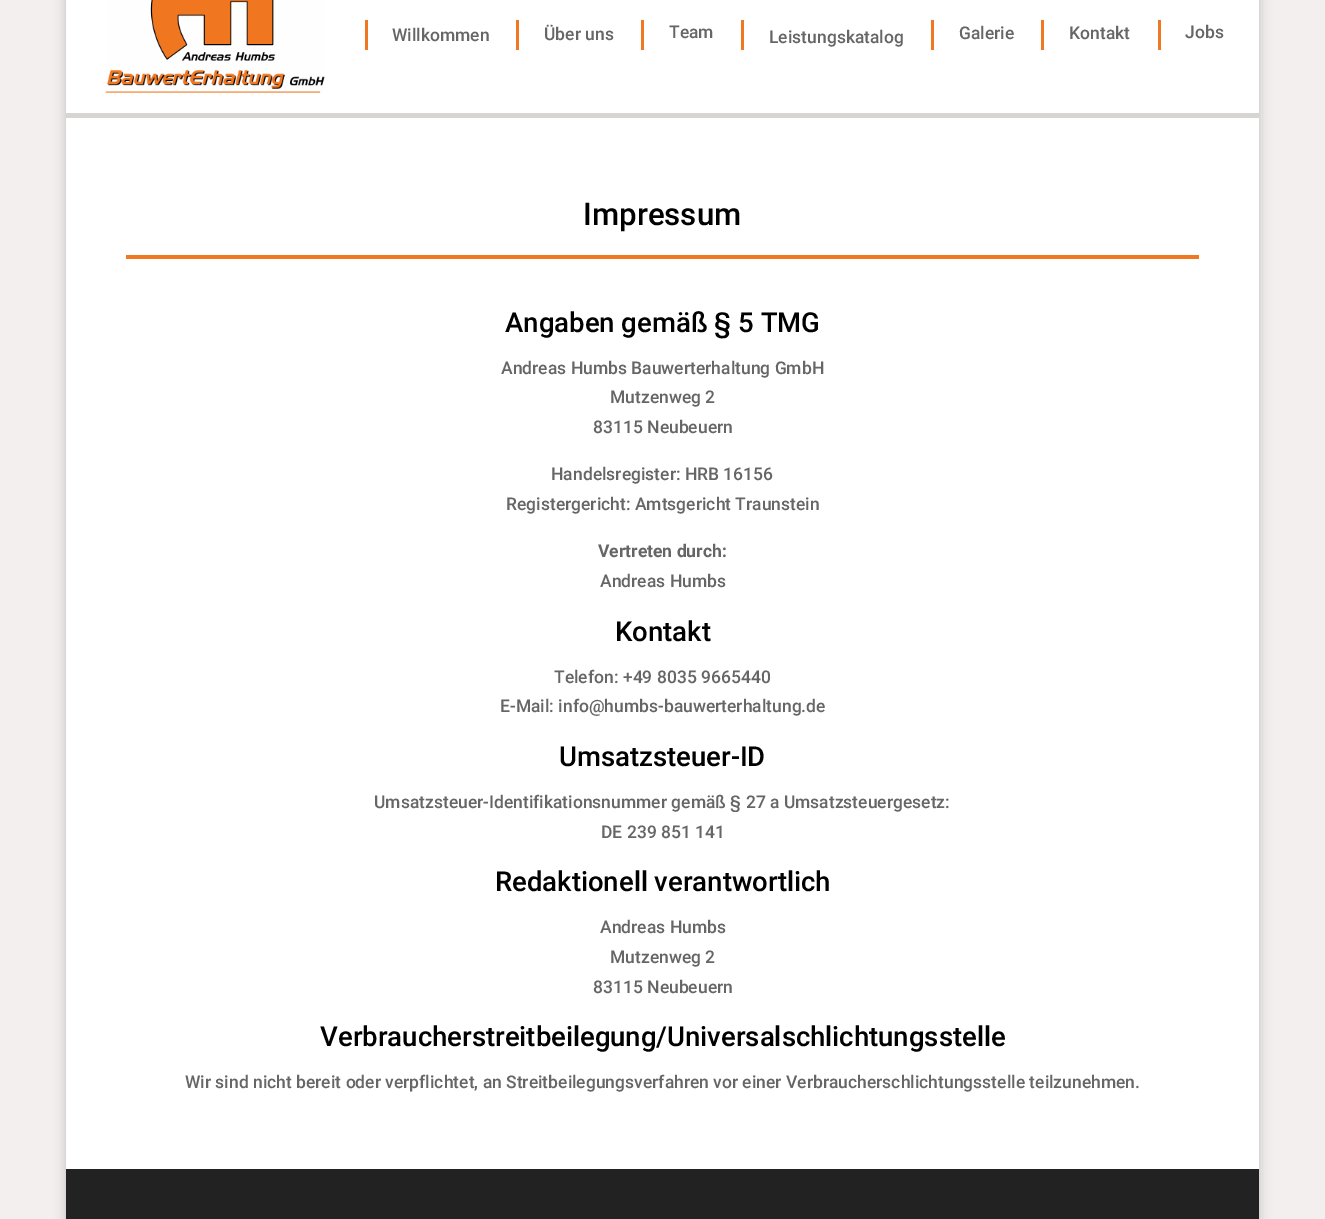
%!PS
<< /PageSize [1325 1219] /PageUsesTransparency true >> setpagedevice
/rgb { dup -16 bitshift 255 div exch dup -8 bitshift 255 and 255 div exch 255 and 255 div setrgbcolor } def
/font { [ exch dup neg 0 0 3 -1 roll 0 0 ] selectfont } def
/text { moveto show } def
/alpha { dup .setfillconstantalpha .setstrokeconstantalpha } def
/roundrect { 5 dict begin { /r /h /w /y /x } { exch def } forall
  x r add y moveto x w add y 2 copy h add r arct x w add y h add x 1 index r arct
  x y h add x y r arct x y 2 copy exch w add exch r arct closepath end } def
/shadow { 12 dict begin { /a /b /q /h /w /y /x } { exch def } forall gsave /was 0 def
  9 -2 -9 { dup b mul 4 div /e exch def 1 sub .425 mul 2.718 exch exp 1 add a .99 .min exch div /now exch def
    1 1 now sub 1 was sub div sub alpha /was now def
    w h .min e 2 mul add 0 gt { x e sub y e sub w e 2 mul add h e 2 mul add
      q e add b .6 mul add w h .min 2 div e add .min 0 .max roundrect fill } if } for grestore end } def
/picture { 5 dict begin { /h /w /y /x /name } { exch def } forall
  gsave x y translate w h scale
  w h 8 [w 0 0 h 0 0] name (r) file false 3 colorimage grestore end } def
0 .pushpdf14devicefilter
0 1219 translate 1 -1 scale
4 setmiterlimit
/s1 { /Roboto-Medium 17.5 font 16#666666 rgb } def
/s2 { /Roboto-Medium 31.25 font 16#000000 rgb } def
/s3 { /Roboto-Medium 27.5 font 16#000000 rgb } def
/s4 { /Roboto-Bold 17.5 font 16#666666 rgb } def
16#F4EFEF rgb
0 0 1325 1219 rectfill
16#000000 rgb
66 -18 1193 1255 0 6 0.2 shadow
16#FFFFFF rgb
66 0 1193 113 rectfill
16#D7D4D4 rgb
66 113 1193 5 rectfill
(pic1.raw) 105 0 220 93 picture
16#F17821 rgb
365 20 3 30 rectfill
s1
(Willkommen) 392 41 text
16#F17821 rgb
516 20 3 30 rectfill
s1
(Über uns) 544 40 text
16#F17821 rgb
641 20 3 30 rectfill
s1
(Team) 669 38 text
16#F17821 rgb
741 20 3 30 rectfill
s1
(Leistungskatalog) 769 43 text
16#F17821 rgb
931 20 3 30 rectfill
s1
(Galerie) 959 39 text
16#F17821 rgb
1041 20 3 30 rectfill
s1
(Kontakt) 1069 39 text
16#F17821 rgb
1158 20 3 30 rectfill
s1
(Jobs) 1185 38 text
16#FFFFFF rgb
66 118 1193 1051 rectfill
16#F17821 rgb
126 255 1073 4 rectfill
s2
(Impressum) 583 225 text
s3
(Angaben gemäß § 5 TMG) 505 332 text
s1
(Andreas Humbs Bauwerterhaltung GmbH) 501 374 text
(Mutzenweg 2) 610 403 text
(83115 Neubeuern) 593 433 text
(Handelsregister: HRB 16156) 551 480 text
(Registergericht: Amtsgericht Traunstein) 506 510 text
s4
(Vertreten durch:) 598 557 text
s1
(Andreas Humbs) 600 587 text
s3
(Kontakt) 615 641 text
s1
(Telefon: +49 8035 9665440) 554 683 text
(E-Mail: info@humbs-bauwerterhaltung.de) 500 712 text
s3
(Umsatzsteuer-ID) 559 766 text
s1
(Umsatzsteuer-Identifikationsnummer gemäß § 27 a Umsatzsteuergesetz:) 374 808 text
(DE 239 851 141) 601 838 text
s3
(Redaktionell verantwortlich) 495 891 text
s1
(Andreas Humbs) 600 933 text
(Mutzenweg 2) 610 963 text
(83115 Neubeuern) 593 993 text
s3
(Verbraucherstreitbeilegung/Universalschlichtungsstelle) 320 1046 text
s1
(Wir sind nicht bereit oder verpflichtet, an Streitbeilegungsverfahren vor einer Verbraucherschlichtungsstelle teilzunehmen.) 185 1088 text
16#222222 rgb
66 1169 1193 50 rectfill
.poppdf14devicefilter showpage
